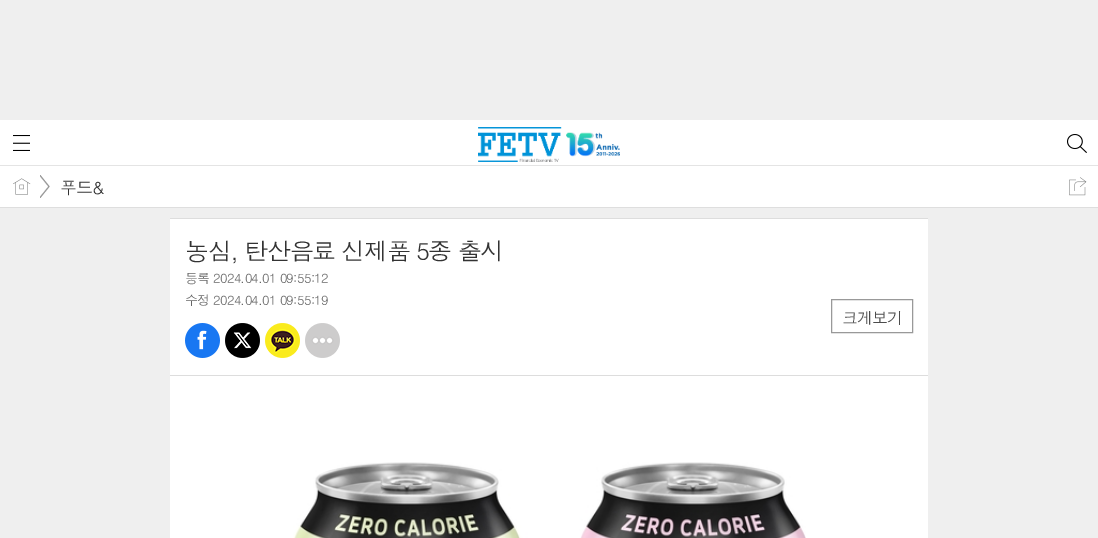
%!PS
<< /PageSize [1098 538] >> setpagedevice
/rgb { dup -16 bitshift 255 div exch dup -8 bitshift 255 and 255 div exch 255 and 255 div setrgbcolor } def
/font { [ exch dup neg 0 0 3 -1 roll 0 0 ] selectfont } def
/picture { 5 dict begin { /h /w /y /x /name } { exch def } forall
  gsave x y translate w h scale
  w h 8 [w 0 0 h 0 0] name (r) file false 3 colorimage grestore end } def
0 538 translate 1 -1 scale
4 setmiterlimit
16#EFEFEF rgb
0 0 1098 538 rectfill
16#FFFFFF rgb
0 120 1098 45 rectfill
16#E4E4E4 rgb
0 165 1098 1 rectfill
(pic1.raw) 13 135 17 16 picture
(pic2.raw) 478 127 142 35 picture
(pic3.raw) 1067 134 20 19 picture
16#FFFFFF rgb
0 166 1098 41 rectfill
16#DEDEDE rgb
0 207 1098 1 rectfill
(pic4.raw) 13 178 18 17 picture
gsave
40 175 10 23 rectclip
16#999999 rgb
38.5 173.5 moveto 49 186.5 lineto 38.5 199.5 lineto stroke
grestore
/Dotum-Regular 17 font
16#333333 rgb
60 194 moveto -1 0 (푸드&) ashow
(pic5.raw) 1069 177 18 19 picture
16#FFFFFF rgb
170 219 758 156 rectfill
16#DDDDDD rgb
170 218 758 1 rectfill
170 375 758 1 rectfill
/Dotum-Regular 24 font
16#333333 rgb
185 260 moveto -1.4 0 (농심, 탄산음료 신제품 5종 출시) ashow
/Dotum-Regular 13 font
16#666666 rgb
185 283 moveto -0.75 0 (등록 2024.04.01 09:55:12) ashow
185 305 moveto -0.75 0 (수정 2024.04.01 09:55:19) ashow
16#999999 rgb
831.5 299.5 81 33 rectstroke
/Dotum-Regular 16 font
16#4C4C4C rgb
842 324 moveto -1 0 (크게보기) ashow
(pic6.raw) 185 323 35 35 picture
(pic7.raw) 225 323 35 35 picture
(pic8.raw) 265 323 35 35 picture
(pic9.raw) 305 323 35 35 picture
16#FFFFFF rgb
170 376 758 162 rectfill
(pic10.raw) 293 462 513 76 picture
showpage
